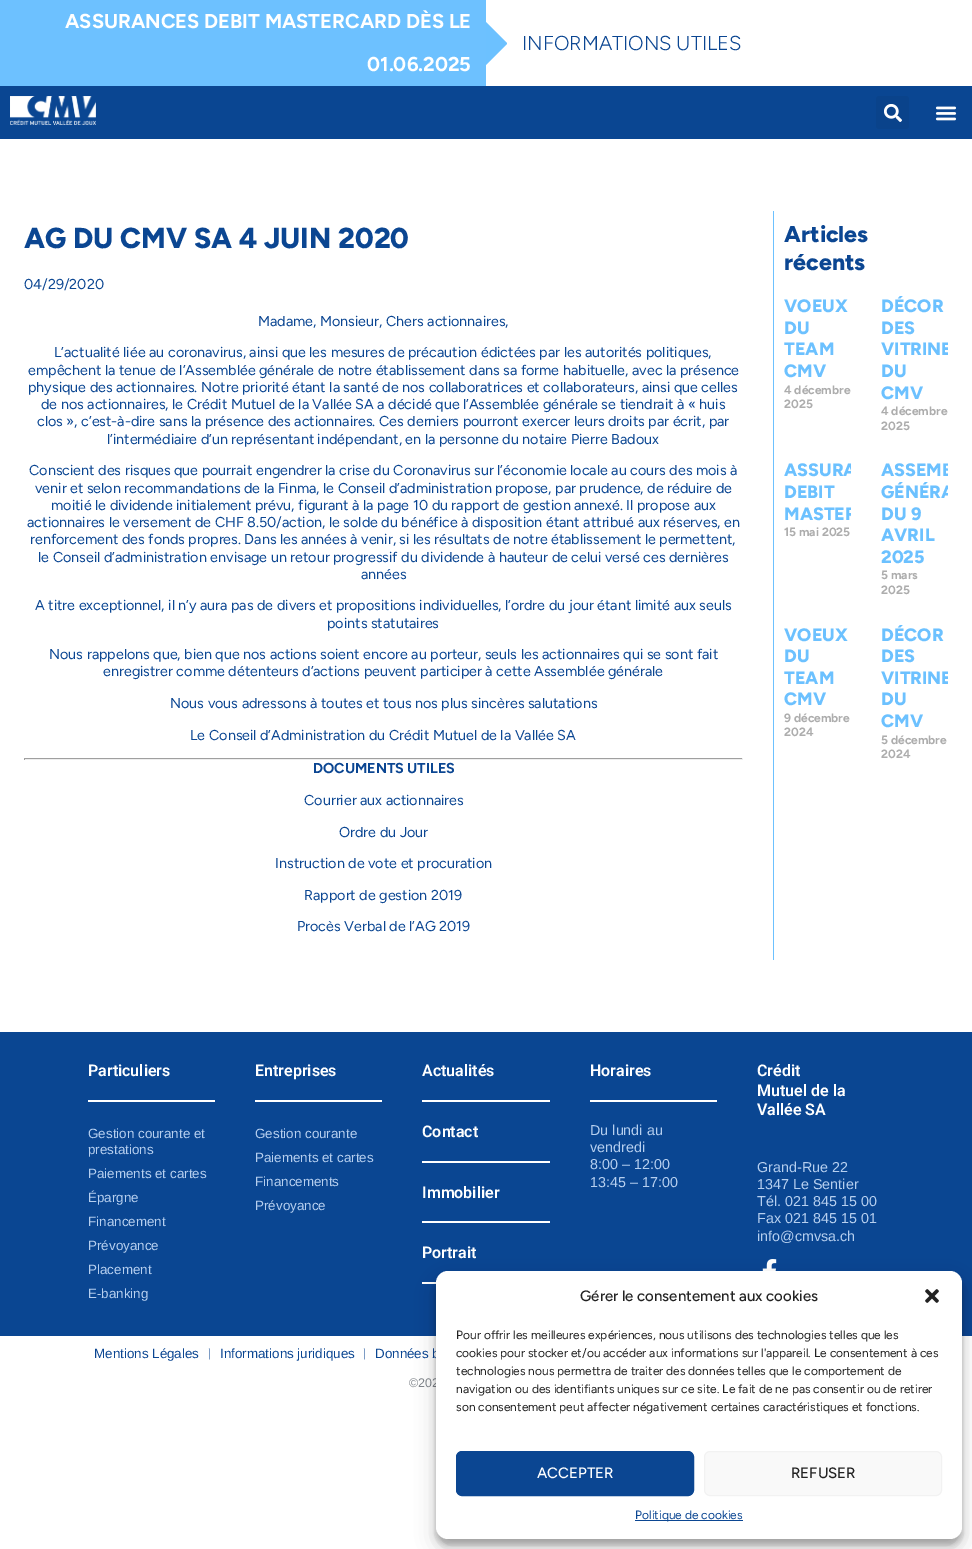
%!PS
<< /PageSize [972 1549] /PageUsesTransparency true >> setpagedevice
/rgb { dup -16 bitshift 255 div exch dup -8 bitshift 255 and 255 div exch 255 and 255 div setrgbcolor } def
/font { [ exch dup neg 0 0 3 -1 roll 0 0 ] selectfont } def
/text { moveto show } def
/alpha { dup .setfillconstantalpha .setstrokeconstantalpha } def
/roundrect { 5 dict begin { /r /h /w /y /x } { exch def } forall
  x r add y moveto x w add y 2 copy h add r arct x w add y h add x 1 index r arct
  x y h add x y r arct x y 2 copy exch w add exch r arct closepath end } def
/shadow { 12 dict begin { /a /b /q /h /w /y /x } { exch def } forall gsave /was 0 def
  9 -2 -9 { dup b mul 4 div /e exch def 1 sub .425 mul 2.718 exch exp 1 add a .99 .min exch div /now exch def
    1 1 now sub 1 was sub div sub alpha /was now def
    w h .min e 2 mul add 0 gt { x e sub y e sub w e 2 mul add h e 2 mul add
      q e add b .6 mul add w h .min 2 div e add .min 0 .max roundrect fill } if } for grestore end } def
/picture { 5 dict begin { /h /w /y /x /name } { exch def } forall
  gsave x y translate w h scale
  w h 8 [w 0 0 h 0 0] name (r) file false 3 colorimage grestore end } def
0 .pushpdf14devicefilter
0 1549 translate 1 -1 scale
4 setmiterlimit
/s1 { /Figtree-Bold 20.1 font 16#FFFFFF rgb } def
/s2 { /Figtree-Light 20.1 font 16#0B4692 rgb } def
/s3 { /Figtree-ExtraBold 28.75 font 16#0B4692 rgb } def
/s4 { /Figtree-Regular 14.35 font 16#0B4692 rgb } def
/s5 { /Figtree-Bold 14.35 font 16#0B4692 rgb } def
/s6 { /Figtree-ExtraBold 23 font 16#0B4692 rgb } def
/s7 { /Figtree-ExtraBold 18 font 16#6CC1FF rgb } def
/s8 { /Figtree-Bold 12 font 16#ADADAD rgb } def
/s9 { /Roboto-SemiBold 16 font 16#FFFFFF rgb } def
/s10 { /LiberationSans-Regular 13.4 font 16#B6CFEF rgb } def
/s11 { /LiberationSans-Regular 14.35 font 16#B6CFEF rgb } def
/s12 { /LiberationSans-Regular 13.4 font 16#0B4692 rgb } def
/s13 { /WenQuanYiZenHei-Medium 13.4 font 16#0B4692 rgb } def
/s14 { /LiberationSans-Regular 12.5 font 16#80858B rgb } def
/s15 { /Figtree-Medium 15 font 16#222222 rgb } def
/s16 { /Figtree-Regular 12 font 16#222222 rgb } def
/s17 { /Figtree-Medium 15 font 16#FFFFFF rgb } def
/s18 { /Figtree-Regular 12 font 16#0B4692 rgb } def
16#FFFFFF rgb
0 0 972 1549 rectfill
16#6DC1FF rgb
0 0 486 86 rectfill
s1
(ASSURANCES DEBIT MASTERCARD DÈS LE) 65 28 text
(01.06.2025) 367 71 text
16#6CC1FF rgb
486 65 moveto 486 22 lineto 507 43 lineto 507 44 lineto closepath fill
s2
(INFORMATIONS UTILES) 522 50 text
16#0A4692 rgb
0 86 972 53 rectfill
(pic1.raw) 10 96 86 29 picture
16#0A438B rgb
876 96 33 33 3 roundrect fill
(pic2.raw) 884 104 18 18 picture
(pic3.raw) 935 106 22 15 picture
s3
(AG DU CMV SA 4 JUIN 2020) 24 248 text
s4
(04/29/2020) 24 289 text
(Madame, Monsieur, Chers actionnaires,) 258 326 text
(L’actualité liée au coronavirus, ainsi que les mesures de précaution édictées par les autorités politiques,) 54 357 text
(empêchent la tenue de l’Assemblée générale de notre établissement dans sa forme habituelle, avec la présence) 28 375 text
(physique des actionnaires. Notre priorité étant la santé de nos collaboratrices et collaborateurs, ainsi que celles) 28 392 text
(de nos actionnaires, le Crédit Mutuel de la Vallée SA a décidé que l’Assemblée générale se tiendrait à « huis) 41 409 text
(clos », c’est-à-dire sans la présence des actionnaires. Ces derniers pourront exercer leurs droits par écrit, par) 37 426 text
(l’intermédiaire d’un représentant indépendant, en la personne du notaire Pierre Badoux) 107 444 text
(Conscient des risques que pourrait engendrer la crise du Coronavirus sur l’économie locale au cours des mois à) 29 475 text
(venir et selon recommandations de la Finma, le Conseil d’administration propose, par prudence, de réduire de) 35 493 text
(moitié le dividende initialement prévu, figurant à la page 10 du rapport de gestion annexé. Il propose aux) 51 510 text
(actionnaires le versement de CHF 8.50/action, le solde du bénéfice à disposition étant attribué aux réserves, en) 27 527 text
(renforcement des fonds propres. Dans les années à venir, si les résultats de notre établissement le permettent,) 30 544 text
(le Conseil d’administration envisage un retour progressif du dividende à hauteur de celui versé ces dernières) 38 562 text
(années) 361 579 text
(A titre exceptionnel, il n’y aura pas de divers et propositions individuelles, l’ordre du jour étant limité aux seuls) 35 610 text
(points statutaires) 327 628 text
(Nous rappelons que, bien que nos actions soient encore au porteur, seuls les actionnaires qui se sont fait) 49 659 text
(enregistrer comme détenteurs d’actions peuvent participer à cette Assemblée générale) 103 676 text
(Nous vous adressons à toutes et tous nos plus sincères salutations) 170 708 text
(Le Conseil d’Administration du Crédit Mutuel de la Vallée SA) 190 740 text
16#9F9F9F rgb
24 758 719 1 rectfill
16#EEEEEE rgb
742 758 1 2 rectfill
24 759 719 1 rectfill
16#9F9F9F rgb
24 758 1 2 rectfill
s5
(DOCUMENTS UTILES) 313 773 text
s4
(Courrier aux actionnaires) 304 805 text
(Ordre du Jour) 339 837 text
(Instruction de vote et procuration) 275 868 text
(Rapport de gestion 2019) 304 900 text
(Procès Verbal de l’AG 2019) 297 931 text
16#6CC1FF rgb
773 211 1 749 rectfill
s6
(Articles) 784 242 text
(récents) 784 270 text
s7
(VOEUX) 784 312 text
(DU) 784 334 text
(TEAM) 784 355 text
(CMV) 784 377 text
s8
(4 décembre) 784 394 text
(2025) 784 408 text
s7
(DÉCOR) 881 312 text
(DES) 881 334 text
gsave
881 296 67 150 rectclip
(VITRINE) 881 355 text
grestore
(DU) 881 377 text
(CMV) 881 399 text
s8
(4 décembre) 881 415 text
(2025) 881 430 text
gsave
784 460 67 150 rectclip
s7
(ASSURA) 784 476 text
grestore
s7
(DEBIT) 784 498 text
gsave
784 460 67 150 rectclip
(MASTER) 784 520 text
grestore
s8
(15 mai 2025) 784 536 text
gsave
881 460 67 150 rectclip
s7
(ASSEMB) 881 476 text
(GÉNÉRA) 881 498 text
grestore
s7
(DU 9) 881 520 text
(AVRIL) 881 541 text
(2025) 881 563 text
s8
(5 mars) 881 579 text
(2025) 881 594 text
s7
(VOEUX) 784 641 text
(DU) 784 662 text
(TEAM) 784 684 text
(CMV) 784 705 text
s8
(9 décembre) 784 722 text
(2024) 784 736 text
s7
(DÉCOR) 881 641 text
(DES) 881 662 text
gsave
881 625 67 149 rectclip
(VITRINE) 881 684 text
grestore
(DU) 881 705 text
(CMV) 881 727 text
s8
(5 décembre) 881 744 text
(2024) 881 758 text
16#0A4692 rgb
0 1032 972 304 rectfill
16#FFFFFF rgb
88 1100 127 2 rectfill
s9
(Particuliers) 88 1076 text
s10
(Gestion courante et) 88 1138 text
(prestations) 88 1154 text
(Paiements et cartes) 88 1178 text
(Épargne) 88 1202 text
(Financement) 88 1226 text
(Prévoyance) 88 1250 text
(Placement) 88 1274 text
(E-banking) 88 1298 text
16#FFFFFF rgb
255 1100 127 2 rectfill
s9
(Entreprises) 255 1076 text
s10
(Gestion courante) 255 1138 text
(Paiements et cartes) 255 1162 text
(Financements) 255 1186 text
(Prévoyance) 255 1210 text
16#FFFFFF rgb
422 1100 128 2 rectfill
s9
(Actualités) 422 1076 text
422 1161 128 2 rectfill
(Contact) 422 1137 text
422 1221 128 2 rectfill
(Immobilier) 422 1198 text
422 1282 15 2 rectfill
(Portrait) 422 1258 text
590 1100 127 2 rectfill
(Horaires) 590 1076 text
s11
(Du lundi au) 590 1135 text
(vendredi) 590 1152 text
(8:00 – 12:00) 590 1169 text
(13:45 – 17:00) 590 1187 text
s9
(Crédit) 757 1076 text
(Mutuel de la) 757 1096 text
(Vallée SA) 757 1115 text
s11
(Grand-Rue 22) 757 1172 text
(1347 Le Sentier) 757 1189 text
(Tél. 021 845 15 00) 757 1206 text
(Fax 021 845 15 01) 757 1223 text
(info@cmvsa.ch) 757 1241 text
(pic4.raw) 762 1259 15 12 picture
s12
(Mentions Légales) 94 1358 text
s13
(︱) 203 1358 text
s12
(Informations juridiques) 220 1358 text
s13
(︱) 358 1358 text
s12
(Données b) 375 1358 text
s14
(©202) 409 1387 text
16#000000 rgb
436 1277 526 268 12 3 0.23 shadow
436 1281 526 268 12 10 0.19 shadow
16#FFFFFF rgb
436 1271 526 268 12 roundrect fill
s15
(Gérer le consentement aux cookies) 580 1301 text
(pic5.raw) 925 1289 14 14 picture
s16
(Pour offrir les meilleures expériences, nous utilisons des technologies telles que les) 456 1339 text
(cookies pour stocker et/ou accéder aux informations sur l'appareil. Le consentement à ces) 456 1357 text
(technologies nous permettra de traiter des données telles que le comportement de) 456 1375 text
(navigation ou des identifiants uniques sur ce site. Le fait de ne pas consentir ou de retirer) 456 1393 text
(son consentement peut affecter négativement certaines caractéristiques et fonctions.) 456 1411 text
16#0B4692 rgb
456.5 1451.5 237 44 5.5 roundrect gsave fill grestore
stroke
s17
(ACCEPTER) 537 1478 text
16#F9F9F9 rgb
704.5 1451.5 237 44 5.5 roundrect gsave fill grestore
16#F2F2F2 rgb
stroke
s15
(REFUSER) 791 1478 text
16#0B4692 rgb
635 1520 108 1 rectfill
s18
(Politique de cookies) 635 1519 text
.poppdf14devicefilter showpage
